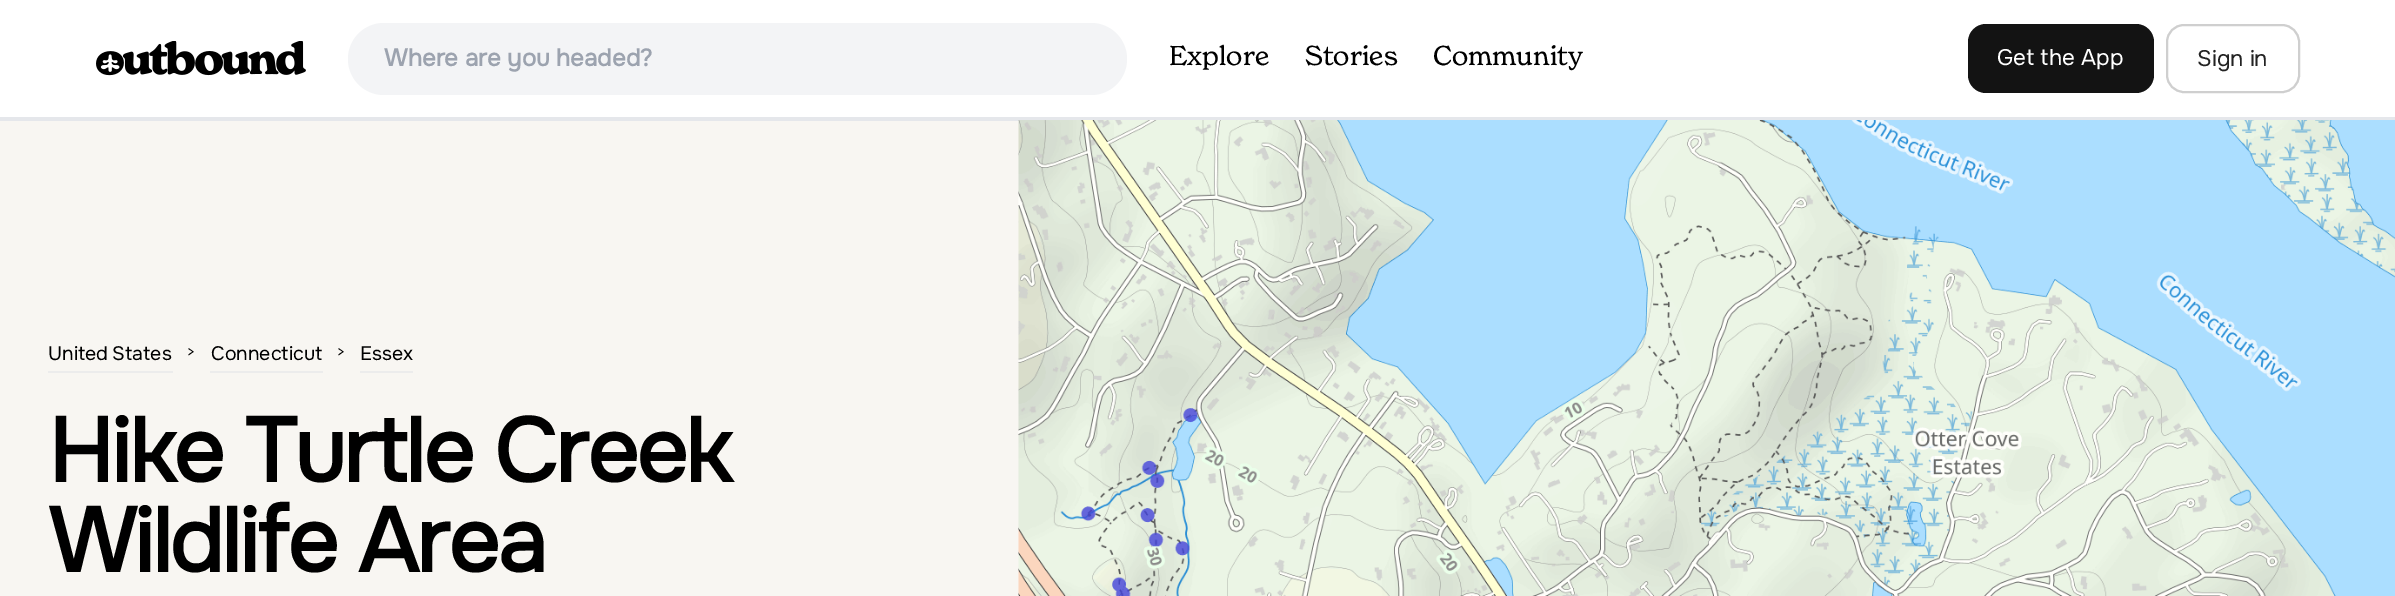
%!PS
<< /PageSize [2395 596] >> setpagedevice
/rgb { dup -16 bitshift 255 div exch dup -8 bitshift 255 and 255 div exch 255 and 255 div setrgbcolor } def
/font { [ exch dup neg 0 0 3 -1 roll 0 0 ] selectfont } def
/text { moveto show } def
/roundrect { 5 dict begin { /r /h /w /y /x } { exch def } forall
  x r add y moveto x w add y 2 copy h add r arct x w add y h add x 1 index r arct
  x y h add x y r arct x y 2 copy exch w add exch r arct closepath end } def
/picture { 5 dict begin { /h /w /y /x /name } { exch def } forall
  gsave x y translate w h scale
  w h 8 [w 0 0 h 0 0] name (r) file false 3 colorimage grestore end } def
0 596 translate 1 -1 scale
4 setmiterlimit
/s1 { /Onest-Bold 24 font 16#9CA3AF rgb } def
/s2 { /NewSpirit-Regular 27 font 16#000000 rgb } def
/s3 { /Onest-Regular 22.5 font 16#FFFFFF rgb } def
/s4 { /Onest-Regular 22.5 font 16#232323 rgb } def
/s5 { /Onest-Regular 15 font 16#000000 rgb } def
/s6 { /Onest-Regular 19.5 font 16#000000 rgb } def
16#F8F6F2 rgb
0 0 2395 596 rectfill
16#FFFFFF rgb
0 0 2395 117 rectfill
16#E5E7EB rgb
0 117 2395 4 rectfill
(pic1.raw) 96 41 210 35 picture
16#F3F4F6 rgb
348 23 779 72 36 roundrect fill
s1
(Where are you headed?) 384 66 text
s2
(Explore) 1169 65 text
(Stories) 1305 65 text
(Community) 1433 65 text
16#131313 rgb
1968 24 186 69 18 roundrect fill
s3
(Get the App) 1997 65 text
16#CFCFCF rgb
2 setlinewidth
2167 25 132 67 17 roundrect stroke
s4
(Sign in) 2197 66 text
/Onest-Regular 19.5 font
16#000000 rgb
48 360 moveto -1 0 32 (United States) widthshow
16#ECECEC rgb
48 371 125 2 rectfill
s5
(>) 187 357 text
s6
(Connecticut) 211 360 text
16#ECECEC rgb
210 371 113 2 rectfill
s5
(>) 337 357 text
s6
(Essex) 360 360 text
16#ECECEC rgb
360 371 53 2 rectfill
/Onest-Bold 90 font
16#000000 rgb
48 482 moveto -2.25 0 (Hike Turtle Creek) ashow
48 572 moveto -2.25 0 (Wildlife Area) ashow
(pic2.raw) 1018 120 1377 476 picture
showpage
